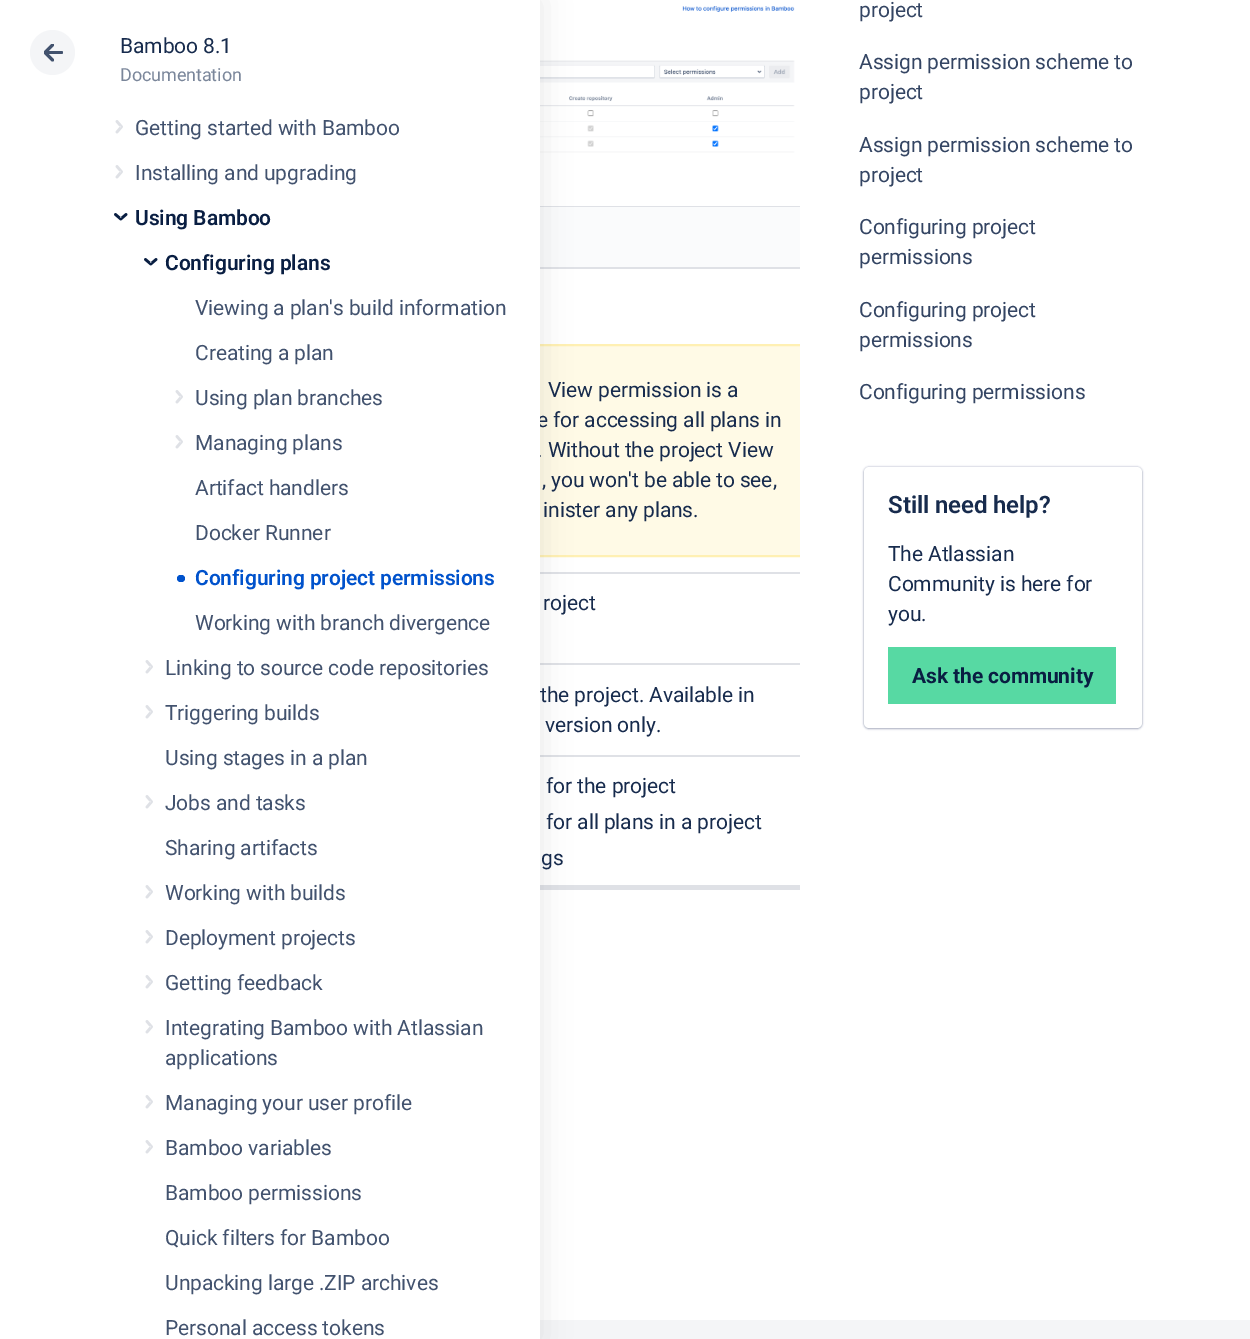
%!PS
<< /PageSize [1250 1339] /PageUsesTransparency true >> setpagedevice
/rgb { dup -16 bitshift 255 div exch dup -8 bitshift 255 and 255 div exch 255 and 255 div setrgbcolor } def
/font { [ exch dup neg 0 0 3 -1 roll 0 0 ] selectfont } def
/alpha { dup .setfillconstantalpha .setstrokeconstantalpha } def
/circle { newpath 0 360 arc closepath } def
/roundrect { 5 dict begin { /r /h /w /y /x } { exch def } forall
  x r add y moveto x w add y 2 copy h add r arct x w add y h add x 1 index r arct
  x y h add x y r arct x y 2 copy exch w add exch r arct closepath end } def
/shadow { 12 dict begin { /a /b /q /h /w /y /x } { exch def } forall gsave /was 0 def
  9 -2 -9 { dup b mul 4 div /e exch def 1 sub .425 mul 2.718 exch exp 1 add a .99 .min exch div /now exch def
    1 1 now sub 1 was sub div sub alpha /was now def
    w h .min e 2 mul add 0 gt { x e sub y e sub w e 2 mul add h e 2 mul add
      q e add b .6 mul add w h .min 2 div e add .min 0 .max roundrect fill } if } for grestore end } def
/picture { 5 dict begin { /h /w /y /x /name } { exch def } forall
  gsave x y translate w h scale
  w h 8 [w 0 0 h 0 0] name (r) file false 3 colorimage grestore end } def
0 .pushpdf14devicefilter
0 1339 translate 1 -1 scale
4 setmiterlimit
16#FFFFFF rgb
0 0 1250 1339 rectfill
(pic3.raw) 540 6 255 147 picture
gsave
105 188 695 702 rectclip
16#DFE1E6 rgb
2 setlinewidth
151 207 693 682 4 roundrect stroke
grestore
16#DFE1E6 rgb
540 885 260 3 rectfill
16#FAFBFC rgb
540 207 260 60 rectfill
16#DFE1E6 rgb
540 267 260 2 rectfill
540 572 260 2 rectfill
16#FFFAE6 rgb
540 346 260 209 rectfill
gsave
105 188 695 702 rectclip
16#FFF0B3 rgb
2 setlinewidth
349 345 478 211 4 roundrect stroke
grestore
16#DFE1E6 rgb
540 663 260 2 rectfill
540 755 260 2 rectfill
16#F4F5F7 rgb
540 1320 710 19 rectfill
16#161616 rgb
0 0 540 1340 0 15 0.1 shadow
/Roboto-Regular 21 font
16#172B4D rgb
537 427 moveto -0.1 0 (e for accessing all plans in) ashow
537 457 moveto -0.1 0 (. Without the project View) ashow
540 702 moveto -0.1 0 (the project. Available in) ashow
16#FFFFFF rgb
0 0 540 1339 rectfill
16#F4F5F7 rgb
52.5 52.5 22.5 circle fill
16#42526E rgb
45 51 18 3 1.5 roundrect fill
gsave
44 44 19 18 rectclip
3 setlinewidth
1 setlinecap
1 setlinejoin
52.5 60 moveto 45 52.5 lineto 52.5 45 lineto stroke
grestore
16#172B4D rgb
120 53 moveto -0.1 0 (Bamboo 8.1) ashow
/Roboto-Regular 18 font
16#7A869A rgb
120 81 moveto -0.1 0 (Documentation) ashow
(pic1.raw) 115 120 8 14 picture
/Roboto-Regular 21 font
16#42526E rgb
135 135 moveto -0.1 0 (Getting started with Bamboo) ashow
(pic1.raw) 115 165 8 14 picture
135 180 moveto -0.1 0 (Installing and upgrading) ashow
(pic2.raw) 114 213 14 8 picture
/Roboto-SemiBold 21 font
16#091E42 rgb
135 225 moveto -0.1 0 (Using Bamboo) ashow
(pic2.raw) 144 258 14 8 picture
165 270 moveto -0.1 0 (Configuring plans) ashow
/Roboto-Regular 21 font
16#42526E rgb
195 315 moveto -0.1 0 (Viewing a plan's build information) ashow
195 360 moveto -0.1 0 (Creating a plan) ashow
(pic1.raw) 175 390 8 14 picture
195 405 moveto -0.1 0 (Using plan branches) ashow
(pic1.raw) 175 435 8 14 picture
195 450 moveto -0.1 0 (Managing plans) ashow
195 495 moveto -0.1 0 (Artifact handlers) ashow
195 540 moveto -0.1 0 (Docker Runner) ashow
16#0052CC rgb
177 575 8 7 3.5 roundrect fill
/Roboto-SemiBold 21 font
195 585 moveto -0.1 0 (Configuring project permissions) ashow
/Roboto-Regular 21 font
16#42526E rgb
195 630 moveto -0.1 0 (Working with branch divergence) ashow
(pic1.raw) 145 660 8 14 picture
165 675 moveto -0.1 0 (Linking to source code repositories) ashow
(pic1.raw) 145 705 8 14 picture
165 720 moveto -0.1 0 (Triggering builds) ashow
165 765 moveto -0.1 0 (Using stages in a plan) ashow
(pic1.raw) 145 795 8 14 picture
165 810 moveto -0.1 0 (Jobs and tasks) ashow
165 855 moveto -0.1 0 (Sharing artifacts) ashow
(pic1.raw) 145 885 8 14 picture
165 900 moveto -0.1 0 (Working with builds) ashow
(pic1.raw) 145 930 8 14 picture
165 945 moveto -0.1 0 (Deployment projects) ashow
(pic1.raw) 145 975 8 14 picture
165 990 moveto -0.1 0 (Getting feedback) ashow
(pic1.raw) 145 1020 8 14 picture
165 1035 moveto -0.1 0 (Integrating Bamboo with Atlassian) ashow
165 1065 moveto -0.1 0 (applications) ashow
(pic1.raw) 145 1095 8 14 picture
165 1110 moveto -0.1 0 (Managing your user profile) ashow
(pic1.raw) 145 1140 8 14 picture
165 1155 moveto -0.1 0 (Bamboo variables) ashow
165 1200 moveto -0.1 0 (Bamboo permissions) ashow
165 1245 moveto -0.1 0 (Quick filters for Bamboo) ashow
165 1290 moveto -0.1 0 (Unpacking large .ZIP archives) ashow
165 1335 moveto -0.1 0 (Personal access tokens) ashow
16#172B4D rgb
548 397 moveto -0.1 0 (View permission is a) ashow
542 487 moveto -0.1 0 (, you won't be able to see,) ashow
543 517 moveto -0.1 0 (inister any plans.) ashow
543 610 moveto -0.1 0 (roject) ashow
545 732 moveto -0.1 0 (version only.) ashow
546 793 moveto -0.1 0 (for the project) ashow
546 829 moveto -0.1 0 (for all plans in a project) ashow
541 865 moveto -0.1 0 (gs) ashow
16#344563 rgb
859 17 moveto -0.1 0 (project) ashow
859 69 moveto -0.1 0 (Assign permission scheme to) ashow
859 99 moveto -0.1 0 (project) ashow
859 152 moveto -0.1 0 (Assign permission scheme to) ashow
859 182 moveto -0.1 0 (project) ashow
859 234 moveto -0.1 0 (Configuring project) ashow
859 264 moveto -0.1 0 (permissions) ashow
859 317 moveto -0.1 0 (Configuring project) ashow
859 347 moveto -0.1 0 (permissions) ashow
859 399 moveto -0.1 0 (Configuring permissions) ashow
16#091E42 rgb
864 467 278 261 5 1 0.31 shadow
864 468 278 261 5 1 0.25 shadow
16#FFFFFF rgb
864 467 278 261 5 roundrect fill
/Roboto-SemiBold 24 font
16#172B4D rgb
888 513 moveto -0.1 0 (Still need help?) ashow
/Roboto-Regular 21 font
888 561 moveto -0.1 0 (The Atlassian) ashow
888 591 moveto -0.1 0 (Community is here for) ashow
888 621 moveto -0.1 0 (you.) ashow
16#57D9A3 rgb
888 647 228 57 rectfill
/Roboto-Bold 21 font
16#091E42 rgb
912 683 moveto -0.1 0 (Ask the community) ashow
.poppdf14devicefilter showpage
